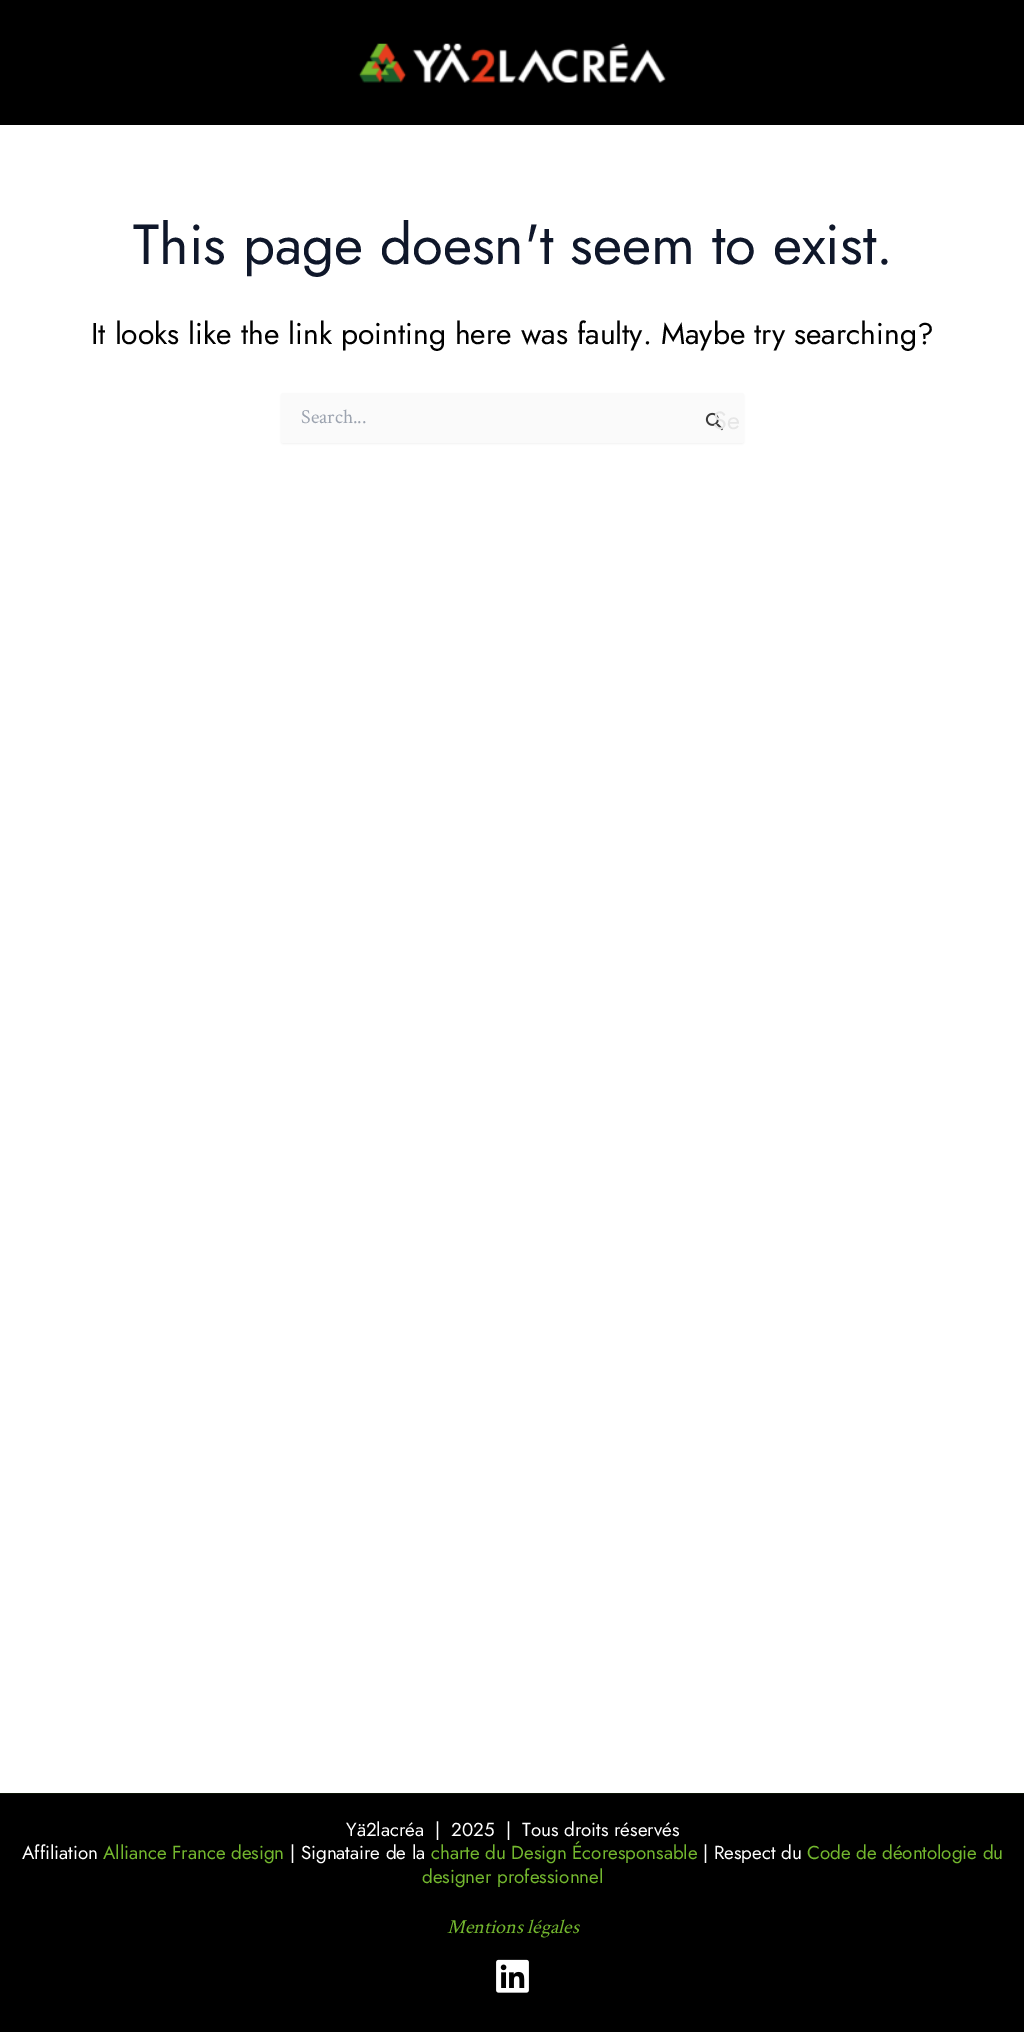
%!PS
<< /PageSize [1024 2032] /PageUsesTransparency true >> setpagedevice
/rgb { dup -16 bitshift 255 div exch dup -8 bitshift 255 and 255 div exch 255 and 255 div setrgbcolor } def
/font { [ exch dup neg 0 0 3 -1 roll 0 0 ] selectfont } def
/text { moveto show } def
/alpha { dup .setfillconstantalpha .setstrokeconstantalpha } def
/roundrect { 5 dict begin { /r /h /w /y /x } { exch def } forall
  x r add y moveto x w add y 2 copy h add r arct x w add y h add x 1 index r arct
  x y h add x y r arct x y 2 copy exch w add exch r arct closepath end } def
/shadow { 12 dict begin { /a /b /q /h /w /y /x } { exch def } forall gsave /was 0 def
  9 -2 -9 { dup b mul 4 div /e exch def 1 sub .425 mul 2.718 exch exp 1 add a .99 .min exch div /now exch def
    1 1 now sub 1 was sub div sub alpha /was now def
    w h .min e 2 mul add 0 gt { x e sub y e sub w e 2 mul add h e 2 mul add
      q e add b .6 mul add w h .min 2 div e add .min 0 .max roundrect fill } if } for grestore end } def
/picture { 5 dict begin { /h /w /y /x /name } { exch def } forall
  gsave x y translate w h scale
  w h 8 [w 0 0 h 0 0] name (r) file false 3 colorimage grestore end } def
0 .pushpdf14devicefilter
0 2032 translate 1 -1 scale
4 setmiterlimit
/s1 { /Jost-Regular 56.25 font 16#0F172A rgb } def
/s2 { /Jost-Regular 30 font 16#000000 rgb } def
/s3 { /CrimsonText-Regular 20 font 16#9CA3AF rgb } def
/s4 { /Jost-Regular 25 font 16#E6E6E6 rgb } def
/s5 { /Jost-Regular 18.75 font 16#FFFFFF rgb } def
/s6 { /Jost-Regular 18.75 font 16#73B72E rgb } def
/s7 { /CrimsonText-Italic 20 font 16#73B72E rgb } def
16#FFFFFF rgb
0 0 1024 2032 rectfill
16#000000 rgb
0 0 1024 125 rectfill
(pic1.raw) 358 43 308 40 picture
s1
(This page doesn't seem to exist.) 133 264 text
s2
(It looks like the link pointing here was faulty. Maybe try searching?) 91 344 text
281 394 463 50 2.5 1 0.05 shadow
16#FAFAFA rgb
281 393 463 50 2.5 roundrect fill
s3
(Search...) 301 423 text
(pic2.raw) 705 412 18 19 picture
s4
(Se) 713 429 text
16#000000 rgb
0 1794 1024 238 rectfill
16#0C1406 rgb
0 1793 1024 1 rectfill
s5
(Yä2lacréa  |  2025  |  Tous droits réservés) 346 1836 text
(Affiliation) 22 1859 text
s6
(Alliance France design) 103 1859 text
s5
(| Signataire de la) 290 1859 text
s6
(charte du Design Écoresponsable) 431 1859 text
s5
(| Respect du) 703 1859 text
s6
(Code de déontologie du) 807 1859 text
(designer professionnel) 422 1883 text
s7
(Mentions légales) 447 1933 text
(pic3.raw) 496 1959 33 34 picture
.poppdf14devicefilter showpage
